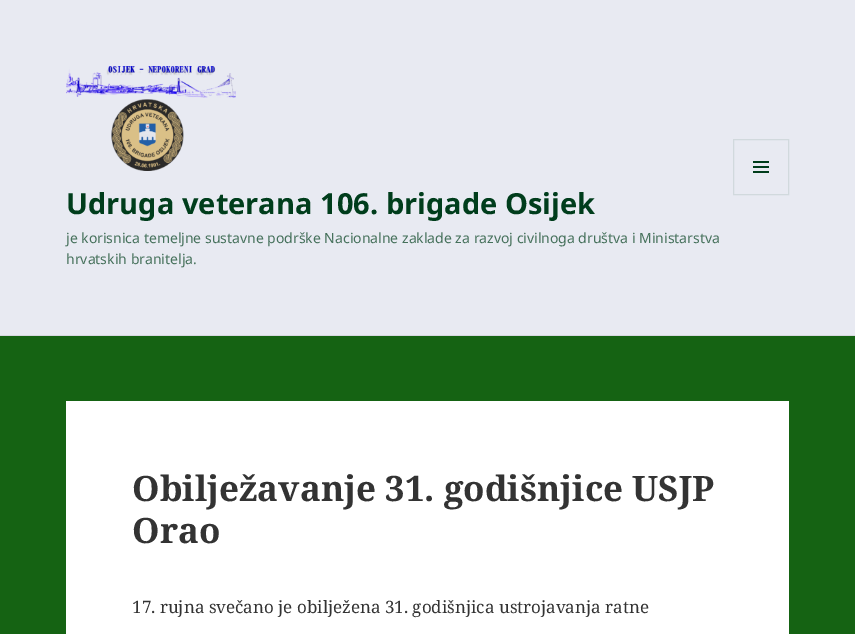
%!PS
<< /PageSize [855 634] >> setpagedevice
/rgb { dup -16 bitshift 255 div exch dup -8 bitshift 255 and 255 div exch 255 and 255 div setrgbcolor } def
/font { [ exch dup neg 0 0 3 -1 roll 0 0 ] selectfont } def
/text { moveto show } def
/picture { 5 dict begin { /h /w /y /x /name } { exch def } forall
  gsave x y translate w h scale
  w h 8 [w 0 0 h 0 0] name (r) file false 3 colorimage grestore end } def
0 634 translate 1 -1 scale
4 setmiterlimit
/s1 { /NotoSans-Bold 29 font 16#003D1C rgb } def
/s2 { /NotoSans-Regular 14 font 16#46715C rgb } def
/s3 { /NotoSerif-Bold 35 font 16#333333 rgb } def
/s4 { /NotoSerif-Regular 17 font 16#333333 rgb } def
16#156313 rgb
0 0 855 634 rectfill
16#E8EAF2 rgb
0 0 855 335 rectfill
16#D6D8DF rgb
0 335 855 1 rectfill
(pic1.raw) 66 66 170 105 picture
16#D1D9DD rgb
733.5 139.5 55 55 rectstroke
(pic2.raw) 753 161 16 12 picture
s1
(Udruga veterana 106. brigade Osijek) 66 214 text
s2
(je korisnica temeljne sustavne podrške Nacionalne zaklade za razvoj civilnoga društva i Ministarstva) 66 243 text
(hrvatskih branitelja.) 66 264 text
16#FFFFFF rgb
66 401 723 233 rectfill
s3
(Obilježavanje 31. godišnjice USJP) 132 501 text
(Orao) 132 543 text
s4
(17. rujna svečano je obilježena 31. godišnjica ustrojavanja ratne) 132 613 text
showpage
